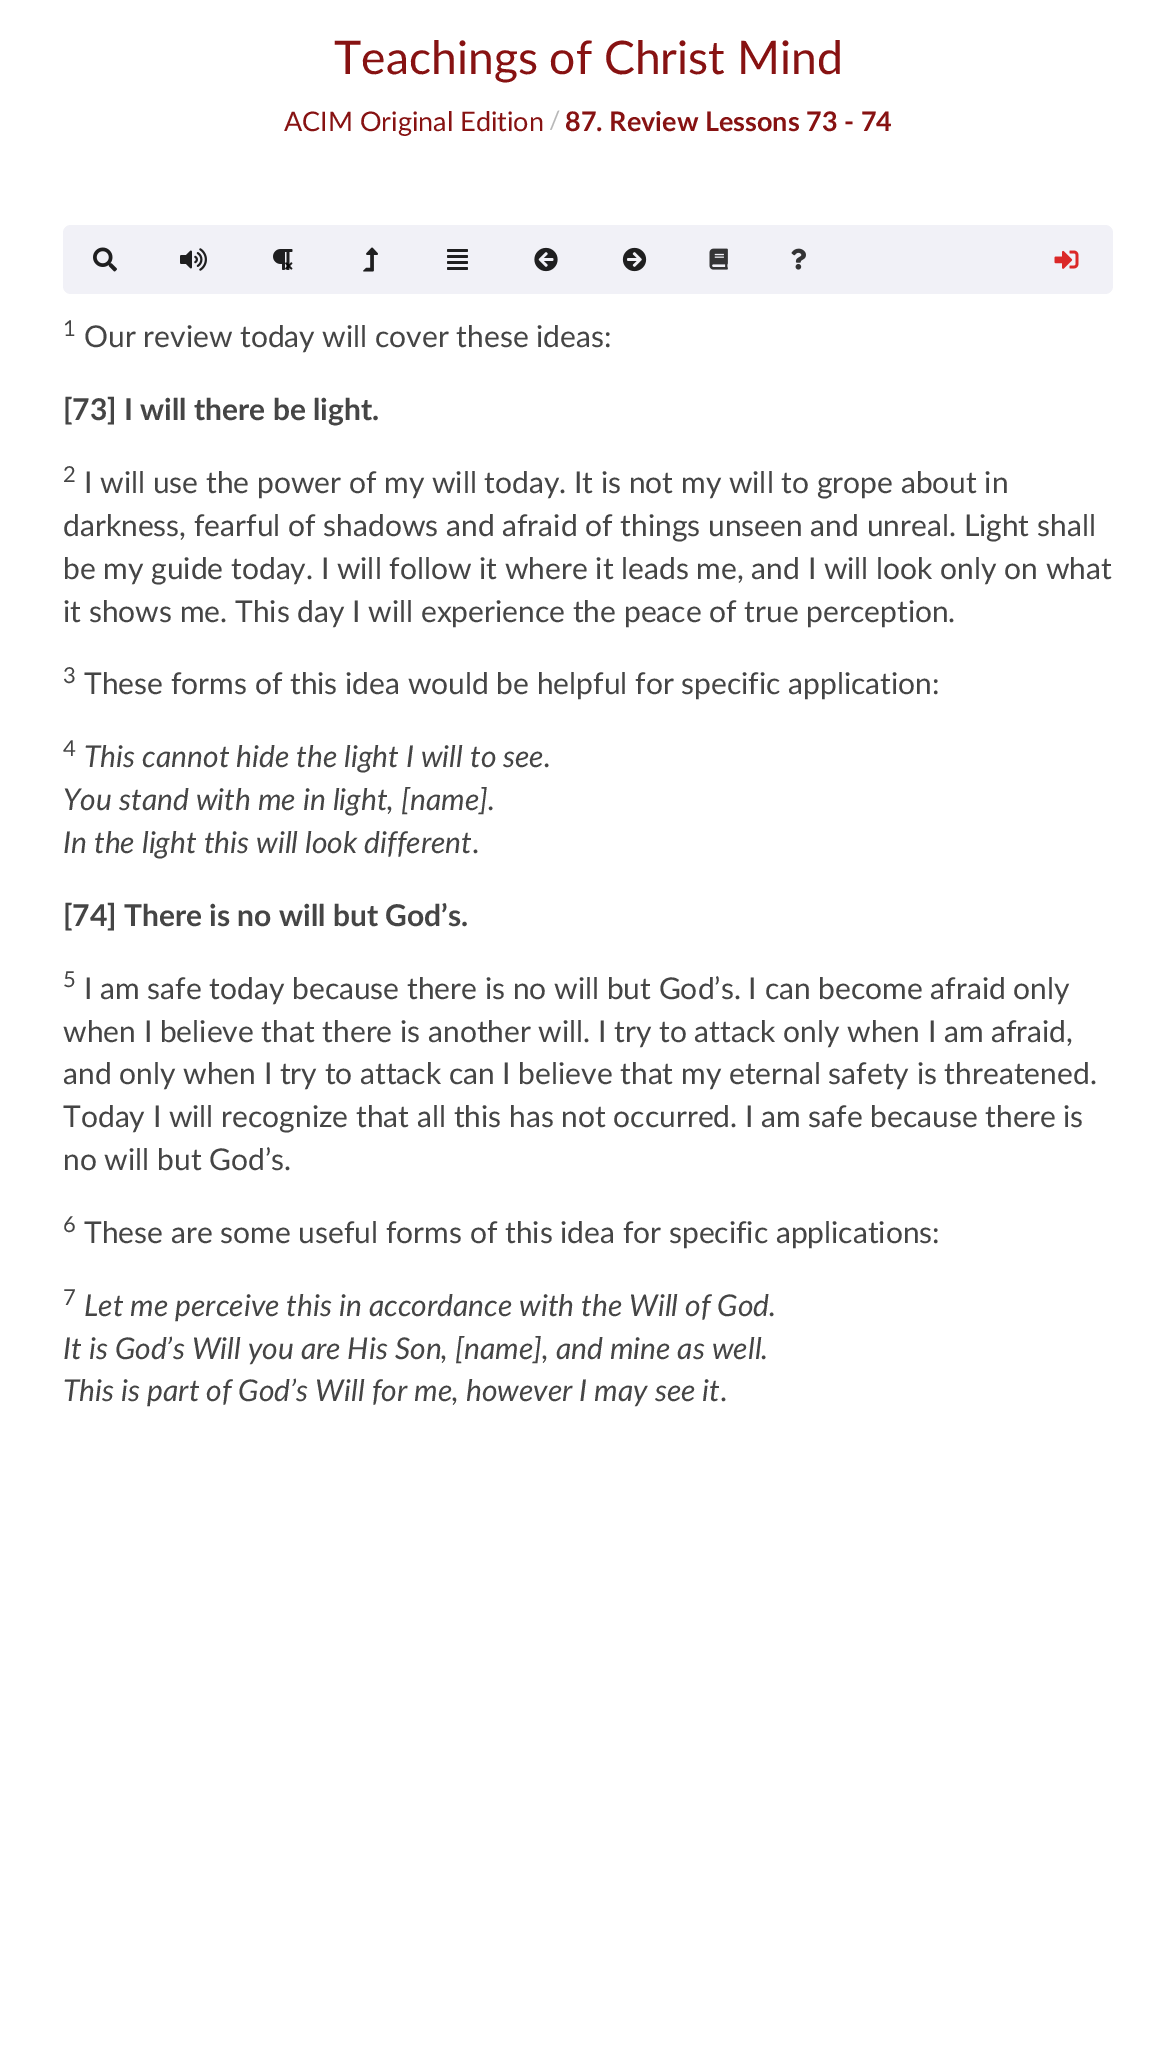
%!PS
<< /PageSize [1175 2059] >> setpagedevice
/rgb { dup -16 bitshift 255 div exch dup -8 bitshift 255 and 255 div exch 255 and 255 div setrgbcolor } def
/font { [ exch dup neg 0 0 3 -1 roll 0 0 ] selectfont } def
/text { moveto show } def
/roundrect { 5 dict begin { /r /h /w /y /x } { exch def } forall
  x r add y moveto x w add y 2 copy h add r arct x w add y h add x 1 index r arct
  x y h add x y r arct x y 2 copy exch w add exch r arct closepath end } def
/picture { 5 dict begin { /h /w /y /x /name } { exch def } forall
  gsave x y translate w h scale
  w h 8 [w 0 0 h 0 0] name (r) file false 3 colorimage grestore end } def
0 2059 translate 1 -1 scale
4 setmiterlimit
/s1 { /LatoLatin-Regular 46.25 font 16#871212 rgb } def
/s2 { /LatoLatin-Regular 27 font 16#871212 rgb } def
/s3 { /LatoLatin-Regular 25 font 16#B8B8B8 rgb } def
/s4 { /LatoLatin-Bold 27 font 16#871212 rgb } def
/s5 { /LatoLatin-Regular 22 font 16#454545 rgb } def
/s6 { /LatoLatin-Regular 30 font 16#454545 rgb } def
/s7 { /LatoLatin-Bold 30 font 16#454545 rgb } def
/s8 { /LatoLatin-Italic 30 font 16#454545 rgb } def
16#FFFFFF rgb
0 0 1175 2059 rectfill
s1
(Teachings of Christ Mind) 334 74 text
s2
(ACIM Original Edition) 284 131 text
s3
(/) 549 129 text
s4
(87. Review Lessons 73 - 74) 565 131 text
16#F1F1F7 rgb
63 225 1050 69 8 roundrect fill
(pic1.raw) 93 247 24 25 picture
(pic2.raw) 180 248 27 23 picture
(pic3.raw) 273 249 20 21 picture
(pic4.raw) 285 262 8 8 picture
(pic5.raw) 363 247 15 25 picture
(pic6.raw) 447 249 21 21 picture
(pic7.raw) 534 247 24 25 picture
(pic8.raw) 622 247 25 25 picture
(pic9.raw) 709 248 19 22 picture
(pic10.raw) 791 248 15 22 picture
(pic11.raw) 1054 250 25 19 picture
s5
(1) 63 336 text
s6
(Our review today will cover these ideas:) 84 347 text
s7
([73] I will there be light.) 63 420 text
s5
(2) 63 482 text
s6
(I will use the power of my will today. It is not my will to grope about in) 84 493 text
(darkness, fearful of shadows and afraid of things unseen and unreal. Light shall) 63 536 text
(be my guide today. I will follow it where it leads me, and I will look only on what) 63 579 text
(it shows me. This day I will experience the peace of true perception.) 63 622 text
s5
(3) 63 683 text
s6
(These forms of this idea would be helpful for specific application:) 84 694 text
s5
(4) 63 756 text
s8
(This cannot hide the light I will to see.) 84 767 text
(You stand with me in light, [name].) 63 810 text
(In the light this will look different) 63 853 text
s6
(.) 472 853 text
s7
([74] There is no will but God’s.) 63 926 text
s5
(5) 63 987 text
s6
(I am safe today because there is no will but God’s. I can become afraid only) 84 999 text
(when I believe that there is another will. I try to attack only when I am afraid,) 63 1042 text
(and only when I try to attack can I believe that my eternal safety is threatened.) 63 1084 text
(Today I will recognize that all this has not occurred. I am safe because there is) 63 1127 text
(no will but God’s.) 63 1170 text
s5
(6) 63 1232 text
s6
(These are some useful forms of this idea for specific applications:) 84 1243 text
s5
(7) 63 1305 text
s8
(Let me perceive this in accordance with the Will of God.) 84 1316 text
(It is God’s Will you are His Son, [name], and mine as well.) 63 1359 text
(This is part of God’s Will for me, however I may see it) 63 1401 text
s6
(.) 720 1401 text
showpage
